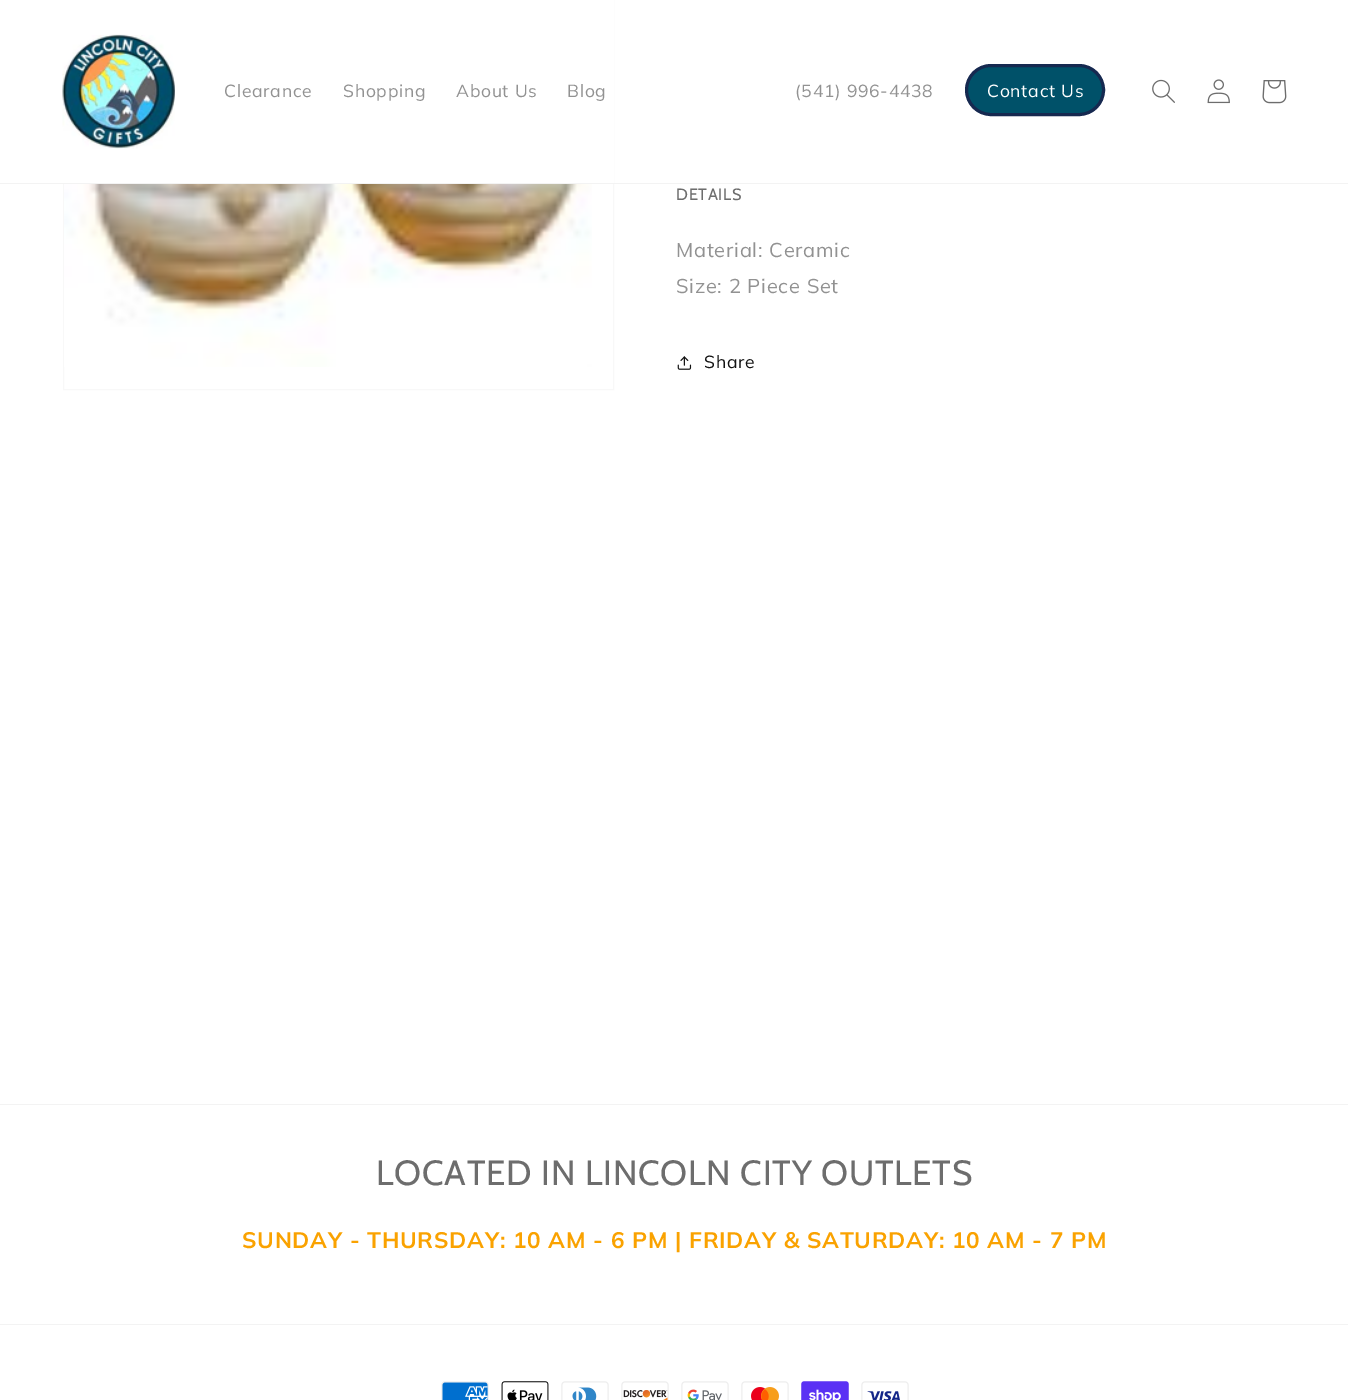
%!PS
<< /PageSize [1348 1400] >> setpagedevice
/rgb { dup -16 bitshift 255 div exch dup -8 bitshift 255 and 255 div exch 255 and 255 div setrgbcolor } def
/font { [ exch dup neg 0 0 3 -1 roll 0 0 ] selectfont } def
/roundrect { 5 dict begin { /r /h /w /y /x } { exch def } forall
  x r add y moveto x w add y 2 copy h add r arct x w add y h add x 1 index r arct
  x y h add x y r arct x y 2 copy exch w add exch r arct closepath end } def
/picture { 5 dict begin { /h /w /y /x /name } { exch def } forall
  gsave x y translate w h scale
  w h 8 [w 0 0 h 0 0] name (r) file false 3 colorimage grestore end } def
0 1400 translate 1 -1 scale
4 setmiterlimit
16#FFFFFF rgb
0 0 1348 1400 rectfill
16#F8F8F8 rgb
63.5 -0.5 550 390 rectstroke
16#FFFFFF rgb
63 0 551 183 rectfill
16#F3F3F3 rgb
0 183 1348 1 rectfill
(pic1.raw) 62 34 113 115 picture
/Muli-Regular 17.5 font
16#929292 rgb
224 97 moveto 0.75 0 (Clearance) ashow
343 97 moveto 0.75 0 (Shopping) ashow
456 97 moveto 0.75 0 (About Us) ashow
567 97 moveto 0.75 0 (Blog) ashow
795 97 moveto 0.75 0 (\(541\) 996-4438) ashow
16#005169 rgb
966.5 65.5 137 49 24.5 roundrect gsave fill grestore
16#162950 rgb
3 setlinewidth
stroke
16#FFFFFF rgb
987 97 moveto 0.75 0 (Contact Us) ashow
(pic2.raw) 1152 79 23 24 picture
(pic3.raw) 1207 79 23 25 picture
(pic4.raw) 1262 80 25 24 picture
(pic5.raw) 64 184 528 183 picture
/Cabin-Regular 16.25 font
16#6D6D6D rgb
676 200 moveto 0.75 0 (DETAILS) ashow
/Muli-Regular 20 font
16#929292 rgb
676 257 moveto 0.75 0 (Material: Ceramic) ashow
676 293 moveto 0.75 0 (Size: 2 Piece Set) ashow
(pic6.raw) 677 356 15 14 picture
/Muli-Regular 17.5 font
16#121212 rgb
704 368 moveto 0.75 0 (Share) ashow
16#F3F3F3 rgb
0 1104 1348 1 rectfill
/Cabin-Regular 35 font
16#6D6D6D rgb
376 1185 moveto 0.75 0 (LOCATED IN LINCOLN CITY OUTLETS) ashow
/Muli-Bold 22.5 font
16#FAA200 rgb
242 1248 moveto 0.75 0 (SUNDAY - THURSDAY: 10 AM - 6 PM | FRIDAY & SATURDAY: 10 AM - 7 PM) ashow
16#F3F3F3 rgb
0 1324 1348 1 rectfill
(pic7.raw) 441 1381 48 19 picture
(pic8.raw) 501 1381 48 19 picture
(pic9.raw) 561 1381 48 19 picture
(pic10.raw) 621 1381 48 19 picture
(pic11.raw) 681 1381 48 19 picture
(pic12.raw) 741 1381 48 19 picture
(pic13.raw) 801 1381 48 19 picture
(pic14.raw) 861 1381 48 19 picture
showpage
